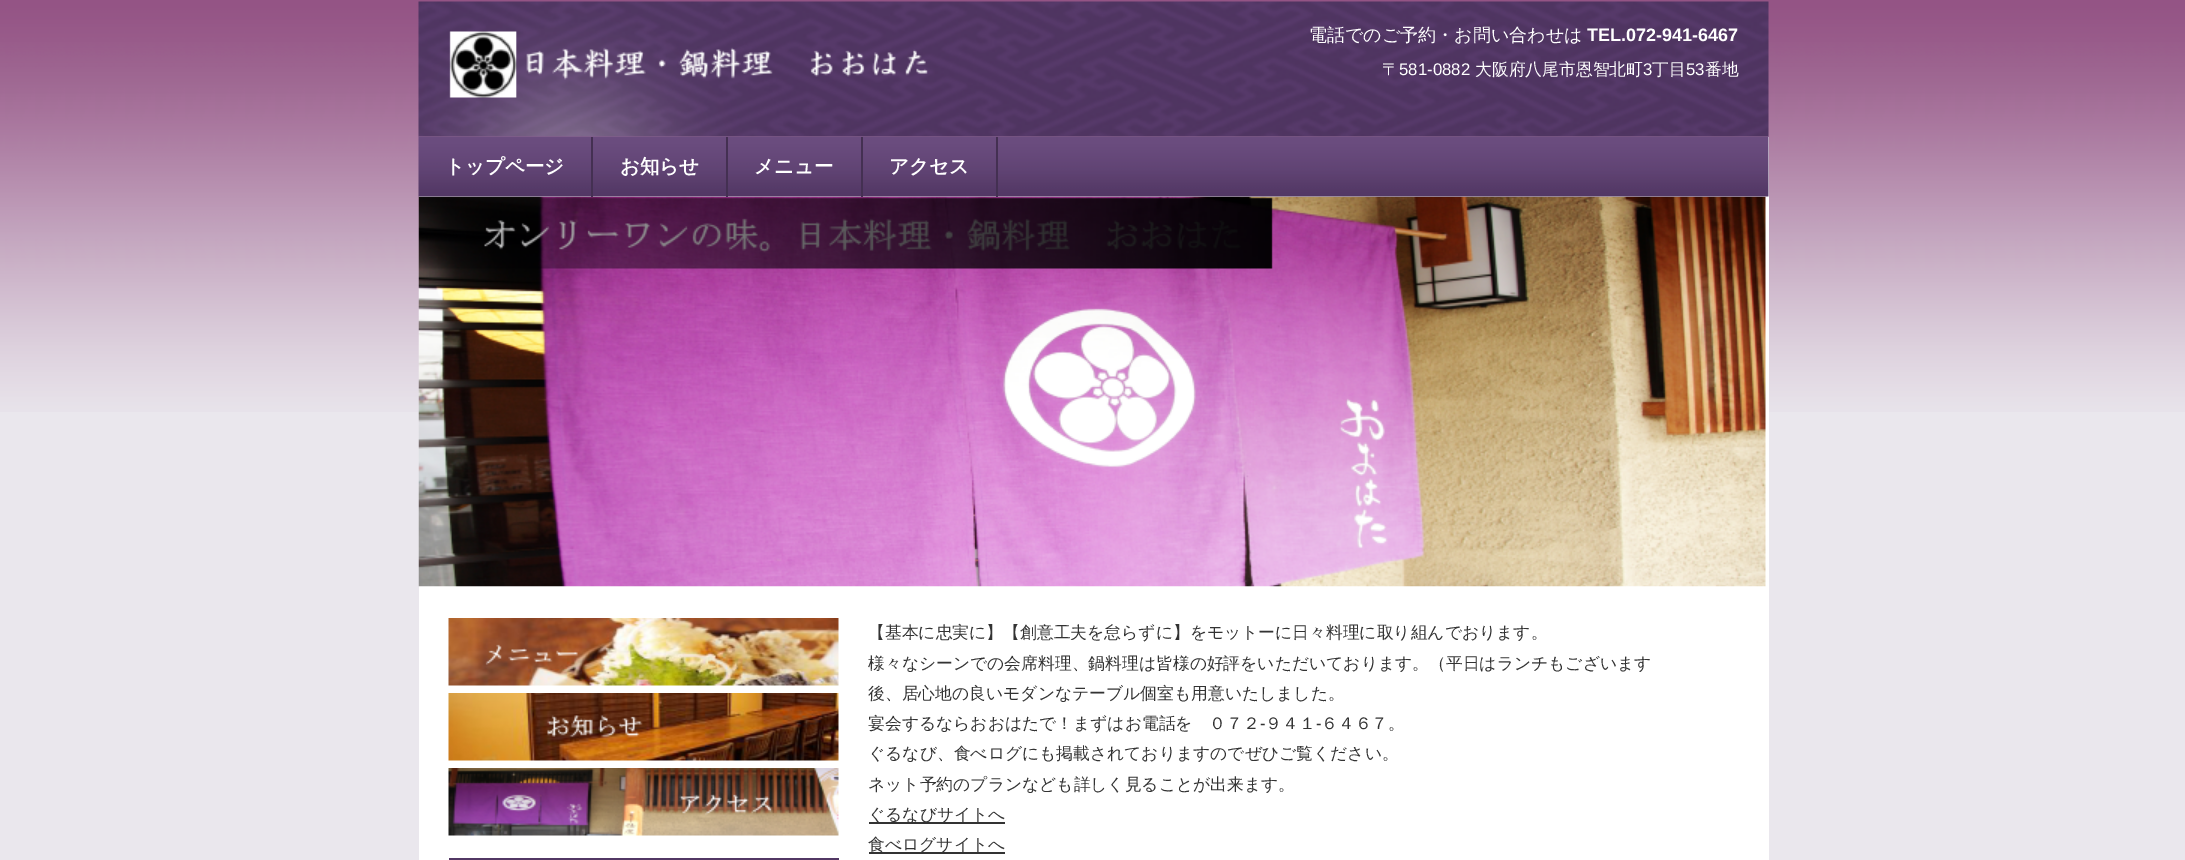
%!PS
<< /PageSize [2185 860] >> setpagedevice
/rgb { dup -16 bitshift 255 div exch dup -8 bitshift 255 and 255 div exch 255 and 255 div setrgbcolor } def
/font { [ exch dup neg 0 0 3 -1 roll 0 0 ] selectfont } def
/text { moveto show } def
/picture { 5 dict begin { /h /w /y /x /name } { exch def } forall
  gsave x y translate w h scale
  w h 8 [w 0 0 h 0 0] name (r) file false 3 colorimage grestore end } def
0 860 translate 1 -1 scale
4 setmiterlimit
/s1 { /WenQuanYiZenHei-Medium 18 font 16#FFFFFF rgb } def
/s2 { /LiberationSans-Bold 18 font 16#FFFFFF rgb } def
/s3 { /WenQuanYiZenHei-Medium 16.8 font 16#FFFFFF rgb } def
/s4 { /LiberationSans-Regular 16.8 font 16#FFFFFF rgb } def
/s5 { /WenQuanYiZenHei-Bold 19.5 font 16#FFFFFF rgb } def
/s6 { /WenQuanYiZenHei-Medium 16.8 font 16#333333 rgb } def
/s7 { /LiberationSans-Regular 16.8 font 16#333333 rgb } def
16#EAE7ED rgb
0 0 2185 860 rectfill
(pic1.raw) 0 0 2185 412 picture
(pic2.raw) 418 1 1351 136 picture
(pic3.raw) 449 31 479 67 picture
s1
(電話でのご予約・お問い合わせは) 1309 41 text
s2
(TEL.072-941-6467) 1587 41 text
s3
(〒) 1382 75 text
s4
(581-0882) 1399 75 text
s3
(大阪府八尾市恩智北町) 1475 75 text
s4
(3) 1643 75 text
s3
(丁目) 1652 75 text
s4
(53) 1686 75 text
s3
(番地) 1705 75 text
419 137 1350 723 rectfill
(pic8.raw) 418 196 1348 391 picture
(pic4.raw) 418 136 1351 61 picture
16#443052 rgb
591 137 2 60 rectfill
s5
(トップページ) 445 173 text
16#443052 rgb
726 137 2 60 rectfill
s5
(お知らせ) 620 173 text
16#443052 rgb
861 137 2 60 rectfill
s5
(メニュー) 754 173 text
16#443052 rgb
996 137 2 60 rectfill
s5
(アクセス) 889 173 text
(pic5.raw) 448 618 391 68 picture
(pic6.raw) 448 693 391 68 picture
(pic7.raw) 448 768 391 68 picture
16#523764 rgb
449 858 390 2 rectfill
s6
(【基本に忠実に】【創意工夫を怠らずに】をモットーに日々料理に取り組んでおります。) 868 638 text
(様々なシーンでの会席料理、鍋料理は皆様の好評をいただいております。（平日はランチもございます) 868 669 text
(後、居心地の良いモダンなテーブル個室も用意いたしました。) 868 699 text
(宴会するならおおはたで！まずはお電話を　０７２) 868 729 text
s7
(‐) 1260 729 text
s6
(９４１) 1265 729 text
s7
(‐) 1316 729 text
s6
(６４６７。) 1321 729 text
(ぐるなび、食べログにも掲載されておりますのでぜひご覧ください。) 868 759 text
(ネット予約のプランなども詳しく見ることが出来ます。) 868 790 text
869 822 136 2 rectfill
(ぐるなびサイトへ) 868 820 text
869 852 136 2 rectfill
(食べログサイトへ) 868 850 text
showpage
